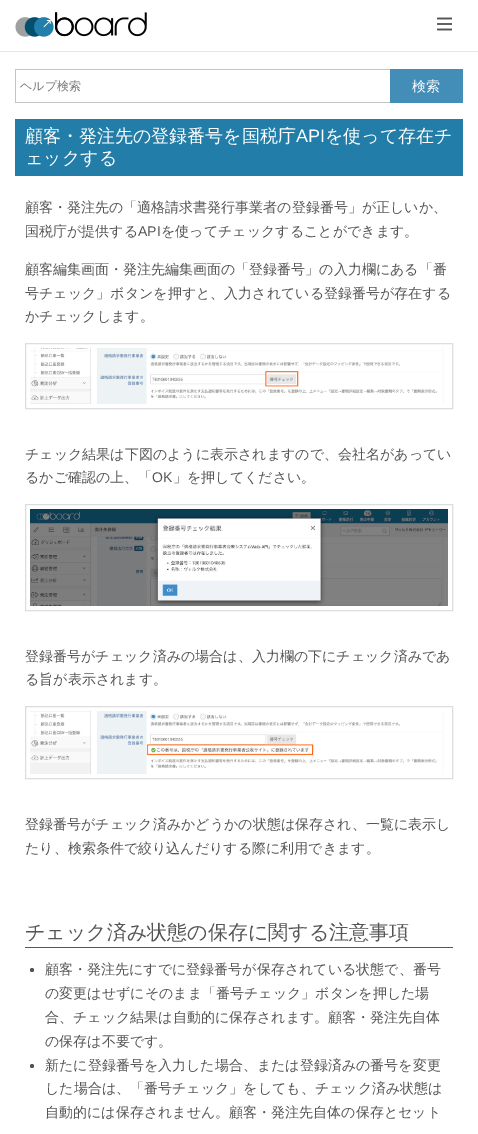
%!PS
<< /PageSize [478 1134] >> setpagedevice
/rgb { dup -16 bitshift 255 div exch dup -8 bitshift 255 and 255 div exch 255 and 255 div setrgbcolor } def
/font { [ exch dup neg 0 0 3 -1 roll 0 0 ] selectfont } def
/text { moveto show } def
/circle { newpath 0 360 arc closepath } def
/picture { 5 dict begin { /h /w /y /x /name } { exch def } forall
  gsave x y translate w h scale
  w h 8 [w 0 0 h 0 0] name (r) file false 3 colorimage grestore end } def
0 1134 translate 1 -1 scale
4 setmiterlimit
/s1 { /WenQuanYiZenHei-Medium 12 font 16#757575 rgb } def
/s2 { /WenQuanYiZenHei-Medium 14 font 16#FFFFFF rgb } def
/s3 { /WenQuanYiZenHei-Medium 18 font 16#FFFFFF rgb } def
/s4 { /LiberationSans-Regular 18 font 16#FFFFFF rgb } def
/s5 { /WenQuanYiZenHei-Medium 14 font 16#555555 rgb } def
/s6 { /LiberationSans-Regular 14 font 16#555555 rgb } def
/s7 { /WenQuanYiZenHei-Medium 20 font 16#555555 rgb } def
16#FFFFFF rgb
0 0 478 1134 rectfill
16#E6E6E6 rgb
0 51 478 1 rectfill
(pic1.raw) 15 12 132 25 picture
(pic2.raw) 437 17 15 14 picture
16#C4C4C4 rgb
15 69 375 1 rectfill
15 102 375 1 rectfill
15 69 1 34 rectfill
s1
(ヘルプ検索) 20 90 text
16#438EB9 rgb
390 69 73 34 rectfill
s2
(検索) 412 91 text
16#227EA8 rgb
15 119 448 57 rectfill
s3
(顧客・発注先の登録番号を国税庁) 25 142 text
s4
(API) 296 142 text
s3
(を使って存在チ) 325 142 text
(ェックする) 25 164 text
s5
(顧客・発注先の「適格請求書発行事業者の登録番号」が正しいか、) 25 212 text
(国税庁が提供する) 25 236 text
s6
(API) 138 236 text
s5
(を使ってチェックすることができます。) 161 236 text
(顧客編集画面・発注先編集画面の「登録番号」の入力欄にある「番) 25 274 text
(号チェック」ボタンを押すと、入力されている登録番号が存在する) 25 298 text
(かチェックします。) 25 321 text
16#DDDDDD rgb
25.5 343.5 427 65 rectstroke
(pic3.raw) 30 348 414 56 picture
s5
(チェック結果は下図のように表示されますので、会社名があってい) 25 459 text
(るかご確認の上、「) 25 482 text
s6
(OK) 152 482 text
s5
(」を押してください。) 173 482 text
16#DDDDDD rgb
25.5 504.5 427 106 rectstroke
(pic4.raw) 30 509 418 97 picture
s5
(登録番号がチェック済みの場合は、入力欄の下にチェック済みであ) 25 661 text
(る旨が表示されます。) 25 684 text
16#DDDDDD rgb
25.5 706.5 427 72 rectstroke
(pic5.raw) 30 711 414 63 picture
s5
(登録番号がチェック済みかどうかの状態は保存され、一覧に表示し) 25 829 text
(たり、検索条件で絞り込んだりする際に利用できます。) 25 853 text
25 947 428 1 rectfill
s7
(チェック済み状態の保存に関する注意事項) 25 939 text
32 970 2 circle fill
s5
(顧客・発注先にすでに登録番号が保存されている状態で、番号) 45 974 text
(の変更はせずにそのまま「番号チェック」ボタンを押した場) 45 998 text
(合、チェック結果は自動的に保存されます。顧客・発注先自体) 45 1022 text
(の保存は不要です。) 45 1046 text
32 1066 2 circle fill
(新たに登録番号を入力した場合、または登録済みの番号を変更) 45 1070 text
(した場合は、「番号チェック」をしても、チェック済み状態は) 45 1093 text
(自動的には保存されません。顧客・発注先自体の保存とセット) 45 1117 text
showpage
